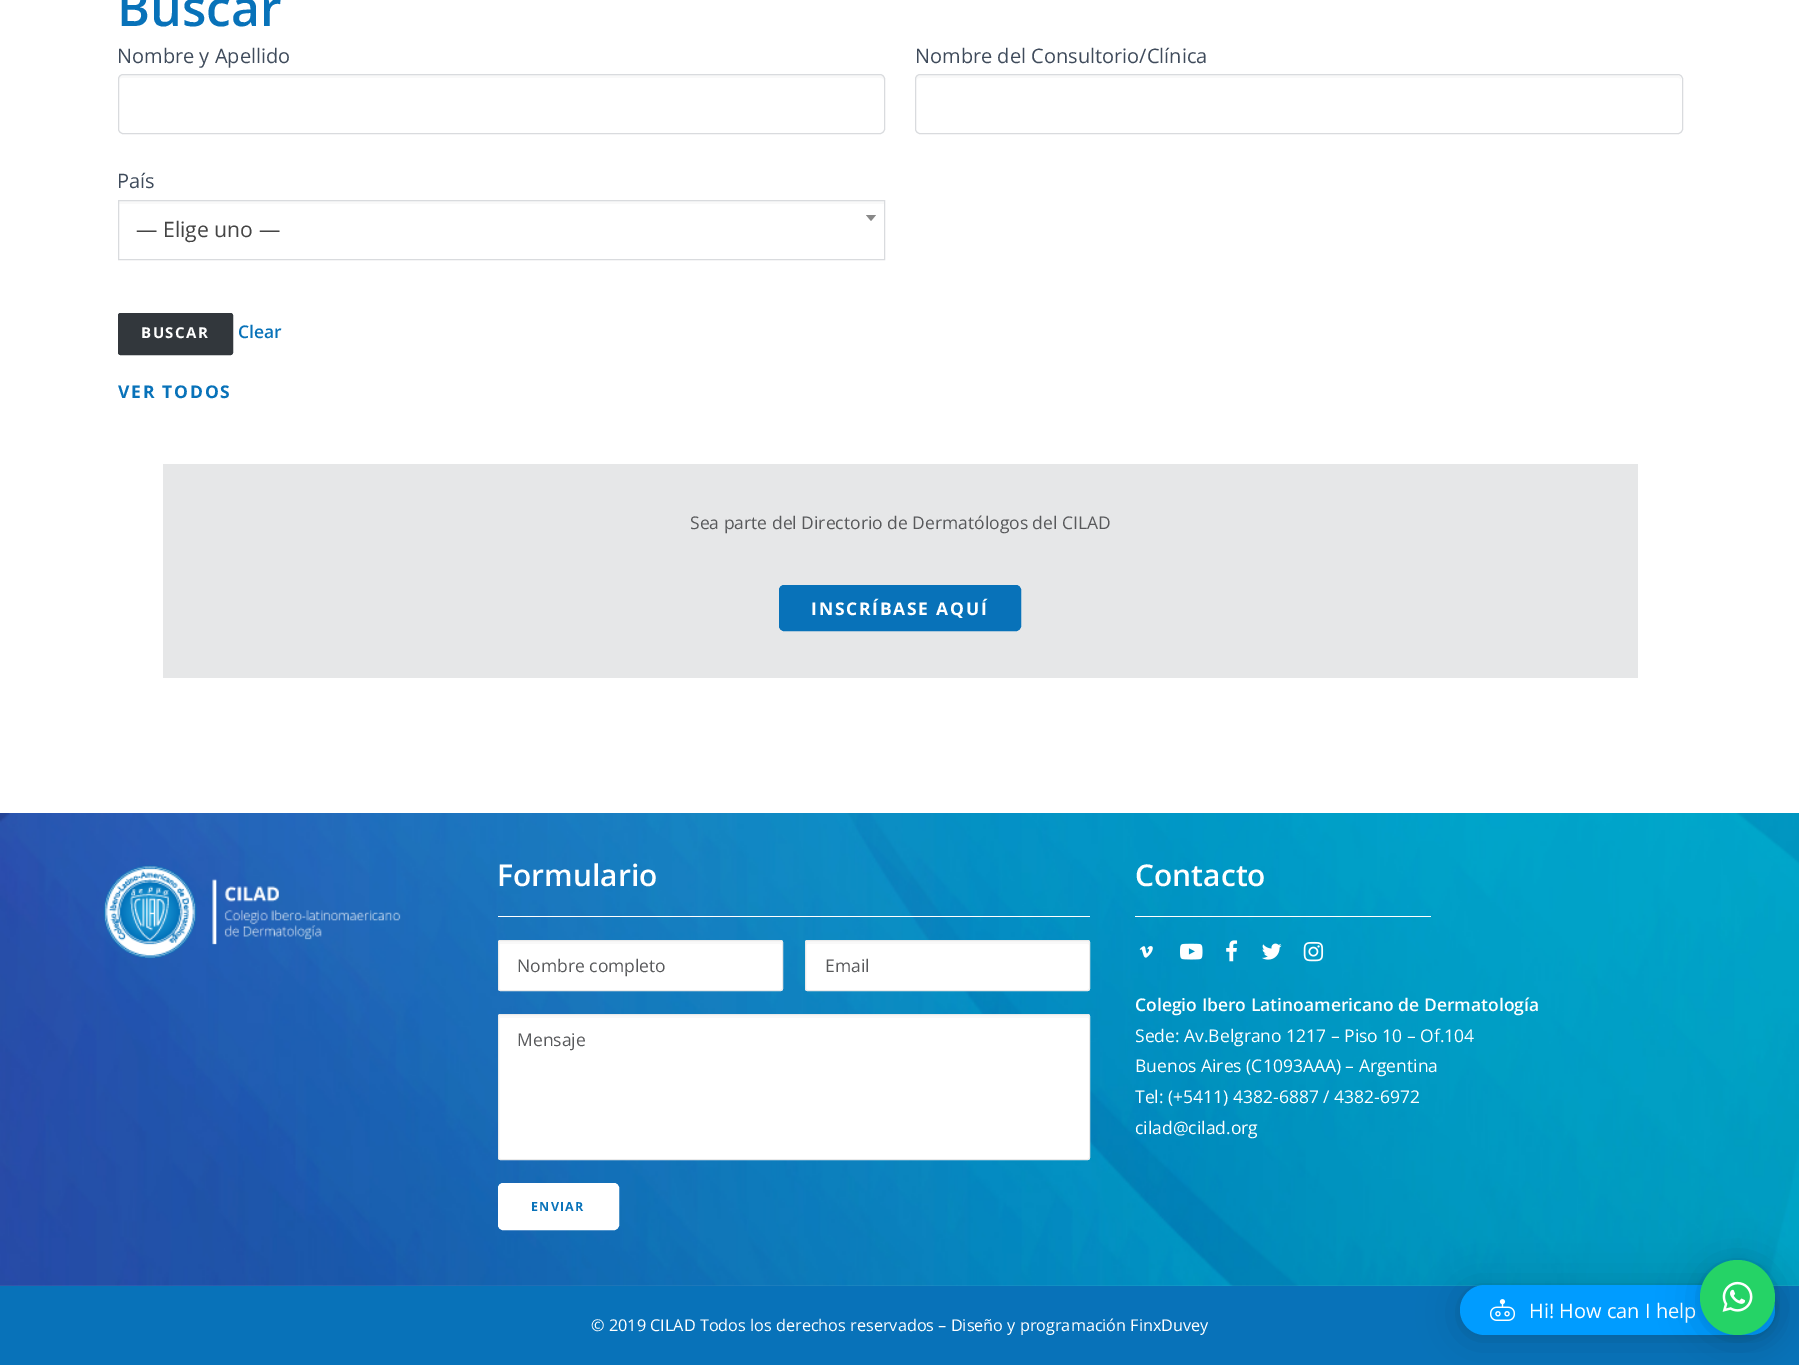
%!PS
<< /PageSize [1799 1365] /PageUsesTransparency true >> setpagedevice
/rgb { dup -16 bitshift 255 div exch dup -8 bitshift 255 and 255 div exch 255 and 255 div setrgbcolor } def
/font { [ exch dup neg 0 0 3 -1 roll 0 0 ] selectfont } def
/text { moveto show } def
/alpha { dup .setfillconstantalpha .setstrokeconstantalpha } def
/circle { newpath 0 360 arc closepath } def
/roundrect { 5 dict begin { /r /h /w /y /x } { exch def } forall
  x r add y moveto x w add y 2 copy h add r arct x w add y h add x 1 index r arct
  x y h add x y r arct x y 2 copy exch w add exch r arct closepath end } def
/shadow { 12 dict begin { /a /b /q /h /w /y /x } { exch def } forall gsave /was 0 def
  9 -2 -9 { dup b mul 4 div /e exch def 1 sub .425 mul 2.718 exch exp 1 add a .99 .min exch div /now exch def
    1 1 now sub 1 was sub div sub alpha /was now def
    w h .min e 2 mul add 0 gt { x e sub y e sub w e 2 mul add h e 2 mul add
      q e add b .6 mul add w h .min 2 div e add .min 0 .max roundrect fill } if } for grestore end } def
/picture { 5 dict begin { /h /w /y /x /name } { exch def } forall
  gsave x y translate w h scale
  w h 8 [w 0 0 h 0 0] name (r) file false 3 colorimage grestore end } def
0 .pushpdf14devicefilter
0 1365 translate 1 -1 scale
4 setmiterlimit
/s1 { /OpenSans-SemiBold 50 font 16#0872B9 rgb } def
/s2 { /OpenSans-Regular 20 font 16#3F4B5B rgb } def
/s3 { /OpenSans-Regular 21.25 font 16#444444 rgb } def
/s4 { /OpenSans-SemiBold 17.5 font 16#0872B9 rgb } def
/s5 { /OpenSans-Regular 17.5 font 16#58595B rgb } def
/s6 { /OpenSans-SemiBold 30 font 16#FFFFFF rgb } def
/s7 { /OpenSans-SemiBold 17.5 font 16#FFFFFF rgb } def
/s8 { /OpenSans-Regular 17.5 font 16#FFFFFF rgb } def
/s9 { /OpenSans-Regular 16.25 font 16#FFFFFF rgb } def
/s10 { /OpenSans-Regular 20 font 16#FFFFFF rgb } def
16#FFFFFF rgb
0 0 1799 1365 rectfill
s1
(Buscar) 117 26 text
s2
(Nombre y Apellido) 117 63 text
16#F9F9F9 rgb
122 78 moveto 880 78 lineto 882 78 884 79 884 81 curveto 884 79 lineto 884 77 882 75 880 75 curveto 123 75 lineto 121 75 119 77 119 79 curveto 119 81 lineto 119 79 120 78 122 78 curveto closepath fill
16#D9DBDE rgb
118.5 74.5 766 59 4.5 roundrect stroke
s2
(Nombre del Consultorio/Clínica) 915 63 text
16#F9F9F9 rgb
920 78 moveto 1678 78 lineto 1680 78 1681 79 1681 81 curveto 1681 79 lineto 1681 77 1679 75 1677 75 curveto 920 75 lineto 918 75 916 77 916 79 curveto 916 81 lineto 916 79 918 78 920 78 curveto closepath fill
16#D9DBDE rgb
915.5 74.5 767 59 4.5 roundrect stroke
s2
(País) 117 188 text
16#F9F9F9 rgb
119 201 765 3 rectfill
16#D9DBDE rgb
118.5 200.5 766 59 rectstroke
16#888888 rgb
866 215 moveto 876 215 lineto 871 221 lineto closepath fill
s3
(— Elige uno —) 136 237 text
16#32373C rgb
118.5 313.5 114 41 2 roundrect gsave fill grestore
stroke
/OpenSans-Bold 15 font
16#FFFFFF rgb
141 338 moveto 1.5 0 (BUSCAR) ashow
s4
(Clear) 238 338 text
/OpenSans-Bold 17.5 font
118 398 moveto 1.75 0 (VER TODOS) ashow
16#E6E7E8 rgb
163 464 1475 214 rectfill
s5
(Sea parte del Directorio de Dermatólogos del CILAD) 690 529 text
16#0872B9 rgb
779.5 585.5 241 45 4.5 roundrect gsave fill grestore
stroke
/OpenSans-Bold 17.5 font
16#FFFFFF rgb
811 615 moveto 1.75 0 (INSCRÍBASE AQUÍ) ashow
(pic1.raw) 0 813 1799 473 picture
(pic2.raw) 103 865 298 94 picture
s6
(Formulario) 497 886 text
498 916 592 1 rectfill
498 940 285 51 2.5 roundrect fill
16#F9F9F9 rgb
500 944 moveto 780 944 lineto 781 944 781 944 781 945 curveto 781 944 782 941 780 941 curveto 500 941 lineto 498 941 499 944 499 945 curveto 499 944 499 944 500 944 curveto closepath fill
16#EAEAEA rgb
498.5 940.5 284 50 2 roundrect stroke
s5
(Nombre completo) 517 972 text
16#FFFFFF rgb
805 940 285 51 2.5 roundrect fill
16#F9F9F9 rgb
808 944 moveto 1088 944 lineto 1089 945 lineto 1089 944 1090 941 1088 941 curveto 807 941 lineto 805 941 806 944 806 945 curveto 806 944 807 944 808 944 curveto closepath fill
16#EAEAEA rgb
805.5 940.5 284 50 2 roundrect stroke
s5
(Email) 825 972 text
16#FFFFFF rgb
498 1014 592 146 2.5 roundrect fill
16#F9F9F9 rgb
500 1018 moveto 1088 1018 lineto 1089 1019 lineto 1089 1015 lineto 500 1015 lineto 498 1015 499 1018 499 1019 curveto 499 1018 499 1018 500 1018 curveto closepath fill
16#EAEAEA rgb
498.5 1014.5 591 145 2 roundrect stroke
s5
(Mensaje) 517 1046 text
16#FFFFFF rgb
498.5 1183.5 120 46 4.5 roundrect gsave fill grestore
stroke
/OpenSans-Bold 12.5 font
16#0872B9 rgb
531 1211 moveto 1.25 0 (ENVIAR) ashow
s6
(Contacto) 1135 886 text
1135 916 296 1 rectfill
(pic3.raw) 1139 946 14 12 picture
(pic4.raw) 1180 943 23 17 picture
(pic5.raw) 1226 940 12 22 picture
(pic6.raw) 1262 943 20 17 picture
(pic7.raw) 1303 941 21 21 picture
s7
(Colegio Ibero Latinoamericano de Dermatología) 1135 1011 text
s8
(Sede: Av.Belgrano 1217 – Piso 10 – Of.104) 1135 1042 text
(Buenos Aires \(C1093AAA\) – Argentina) 1135 1072 text
(Tel: \(+5411\) 4382-6887 / 4382-6972) 1135 1103 text
(cilad@cilad.org) 1135 1134 text
16#0872B9 rgb
0 1286 1799 79 rectfill
s9
(© 2019 CILAD Todos los derechos reservados – Diseño y programación FinxDuvey) 591 1331 text
16#000000 rgb
1460 1288 315 50 25 20 0.16 shadow
1460 1286 315 50 25 4 0.06 shadow
16#009CFF rgb
1460 1285 315 50 25 roundrect fill
(pic8.raw) 1490 1299 25 22 picture
s10
(Hi! How can I help) 1529 1318 text
16#000000 rgb
1700 1263 75 75 37.5 20 0.16 shadow
1700 1261 75 75 37.5 4 0.06 shadow
16#25D366 rgb
1737.5 1297.5 37.5 circle fill
(pic9.raw) 1722 1281 31 31 picture
.poppdf14devicefilter showpage
